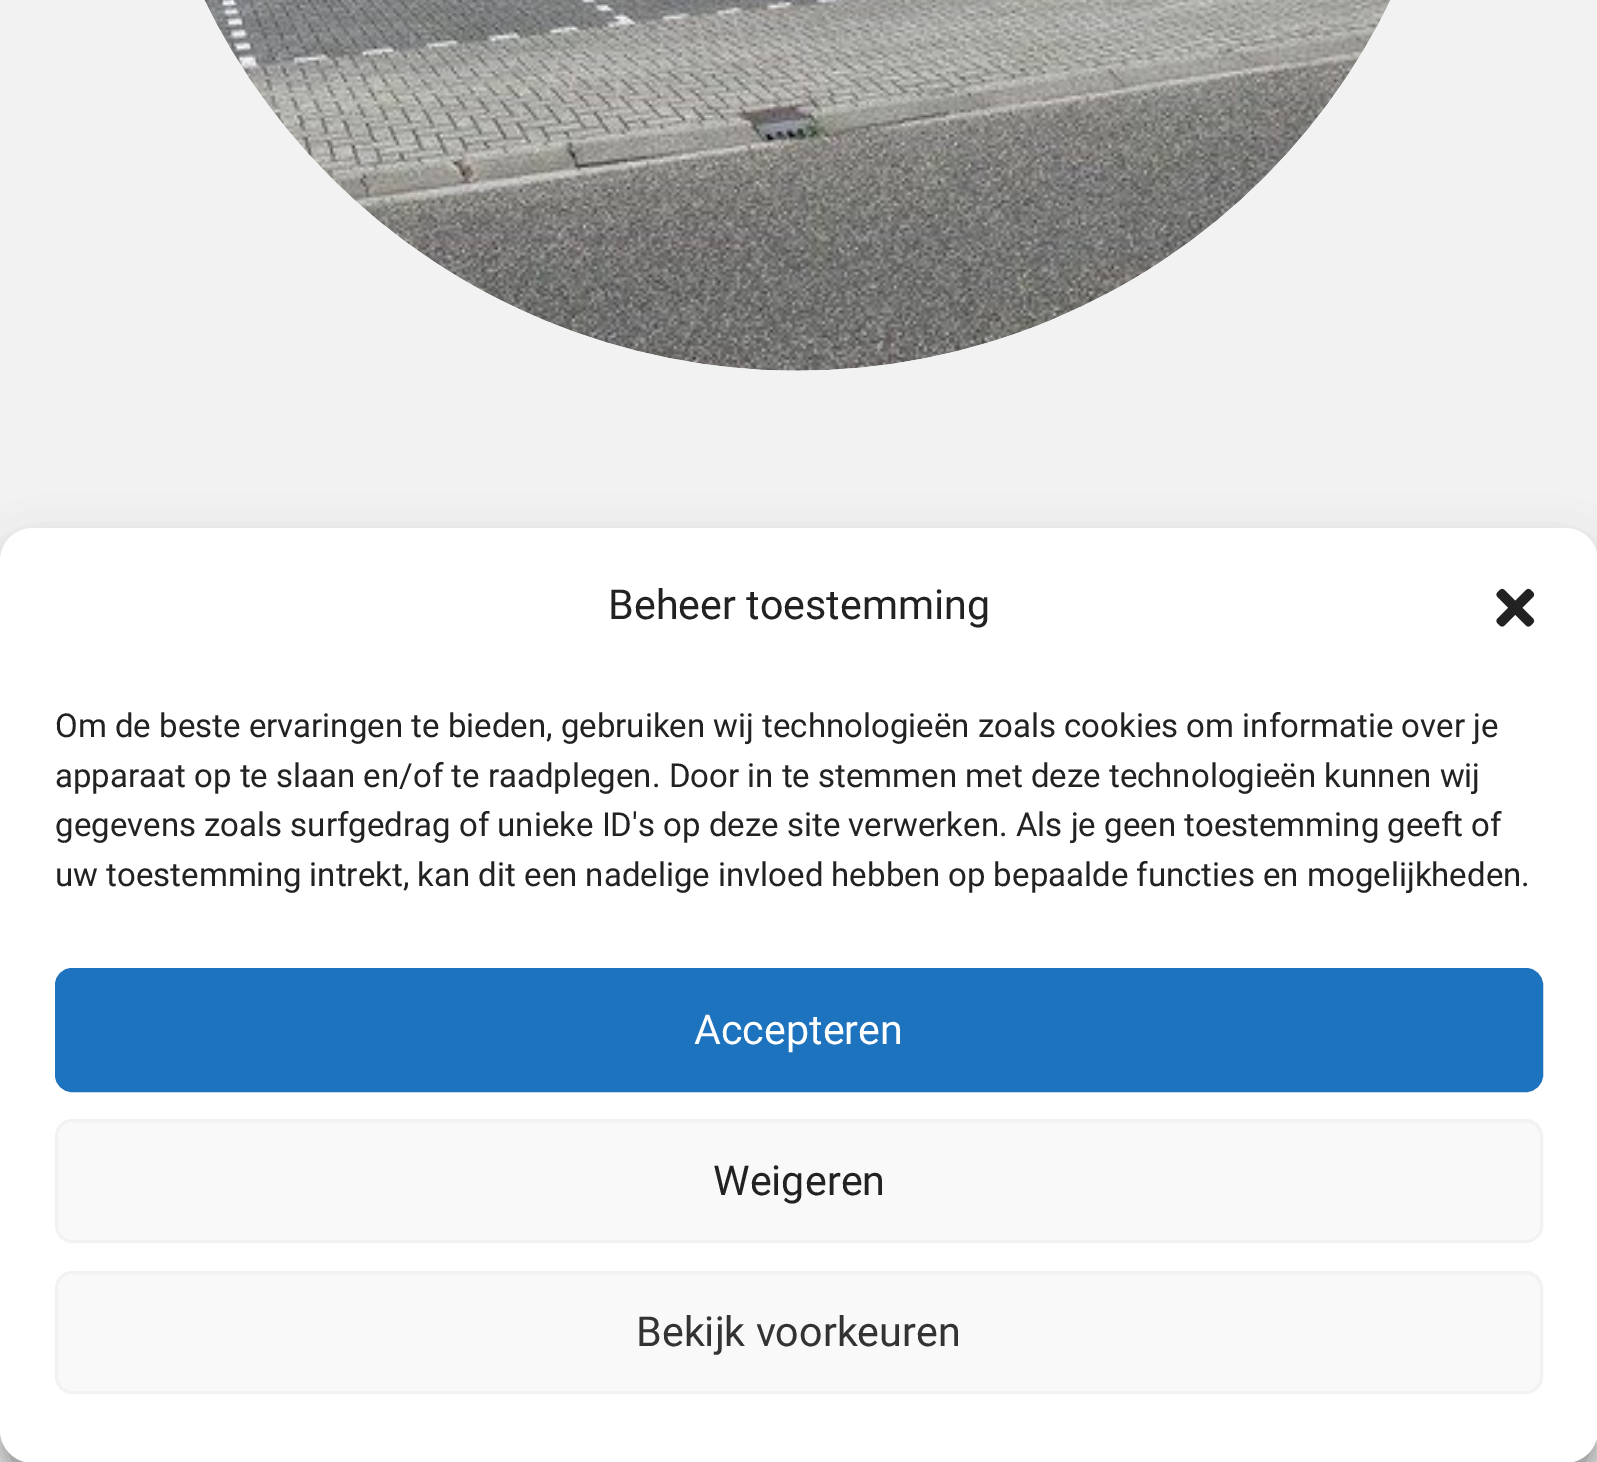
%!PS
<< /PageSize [1597 1462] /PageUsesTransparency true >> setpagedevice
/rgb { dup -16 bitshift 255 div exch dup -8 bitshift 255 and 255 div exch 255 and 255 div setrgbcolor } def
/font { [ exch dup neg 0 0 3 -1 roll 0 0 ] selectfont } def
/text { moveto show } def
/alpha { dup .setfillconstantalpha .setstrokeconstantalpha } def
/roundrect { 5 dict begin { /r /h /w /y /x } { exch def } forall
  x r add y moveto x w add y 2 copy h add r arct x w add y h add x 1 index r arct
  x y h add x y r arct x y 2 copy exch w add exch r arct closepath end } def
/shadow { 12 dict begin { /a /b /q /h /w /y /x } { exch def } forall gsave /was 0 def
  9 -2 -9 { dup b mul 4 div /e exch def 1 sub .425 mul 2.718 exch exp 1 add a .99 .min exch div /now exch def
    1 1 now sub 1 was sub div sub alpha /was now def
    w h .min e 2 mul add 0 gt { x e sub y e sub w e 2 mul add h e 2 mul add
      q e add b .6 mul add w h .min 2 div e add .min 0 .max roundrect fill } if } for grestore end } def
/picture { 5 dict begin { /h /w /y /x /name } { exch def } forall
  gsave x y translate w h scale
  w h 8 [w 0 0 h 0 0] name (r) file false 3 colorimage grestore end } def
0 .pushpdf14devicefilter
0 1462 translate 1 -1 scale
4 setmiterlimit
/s1 { /Roboto-Regular 41.25 font 16#222222 rgb } def
/s2 { /Roboto-Regular 33 font 16#222222 rgb } def
/s3 { /Roboto-Regular 41.25 font 16#FFFFFF rgb } def
/s4 { /Roboto-Regular 41.25 font 16#333333 rgb } def
16#F2F2F2 rgb
0 0 1597 1462 rectfill
(pic1.raw) 204 0 1187 371 picture
16#000000 rgb
0 545 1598 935 33 8 0.23 shadow
0 556 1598 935 33 27.5 0.19 shadow
16#FFFFFF rgb
0 528 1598 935 33 roundrect fill
s1
(Beheer toestemming) 608 619 text
(pic2.raw) 1496 588 39 39 picture
s2
(Om de beste ervaringen te bieden, gebruiken wij technologieën zoals cookies om informatie over je) 55 737 text
(apparaat op te slaan en/of te raadplegen. Door in te stemmen met deze technologieën kunnen wij) 55 787 text
(gegevens zoals surfgedrag of unieke ID's op deze site verwerken. Als je geen toestemming geeft of) 55 836 text
(uw toestemming intrekt, kan dit een nadelige invloed hebben op bepaalde functies en mogelijkheden.) 55 886 text
16#1E73BE rgb
56.5 969.5 1485 121 15.5 roundrect gsave fill grestore
3 setlinewidth
stroke
s3
(Accepteren) 694 1044 text
16#F9F9F9 rgb
56.5 1120.5 1485 121 15.5 roundrect gsave fill grestore
16#F2F2F2 rgb
stroke
s1
(Weigeren) 713 1195 text
16#F9F9F9 rgb
56.5 1272.5 1485 120 15.5 roundrect gsave fill grestore
16#F2F2F2 rgb
stroke
s4
(Bekijk voorkeuren) 636 1346 text
.poppdf14devicefilter showpage
